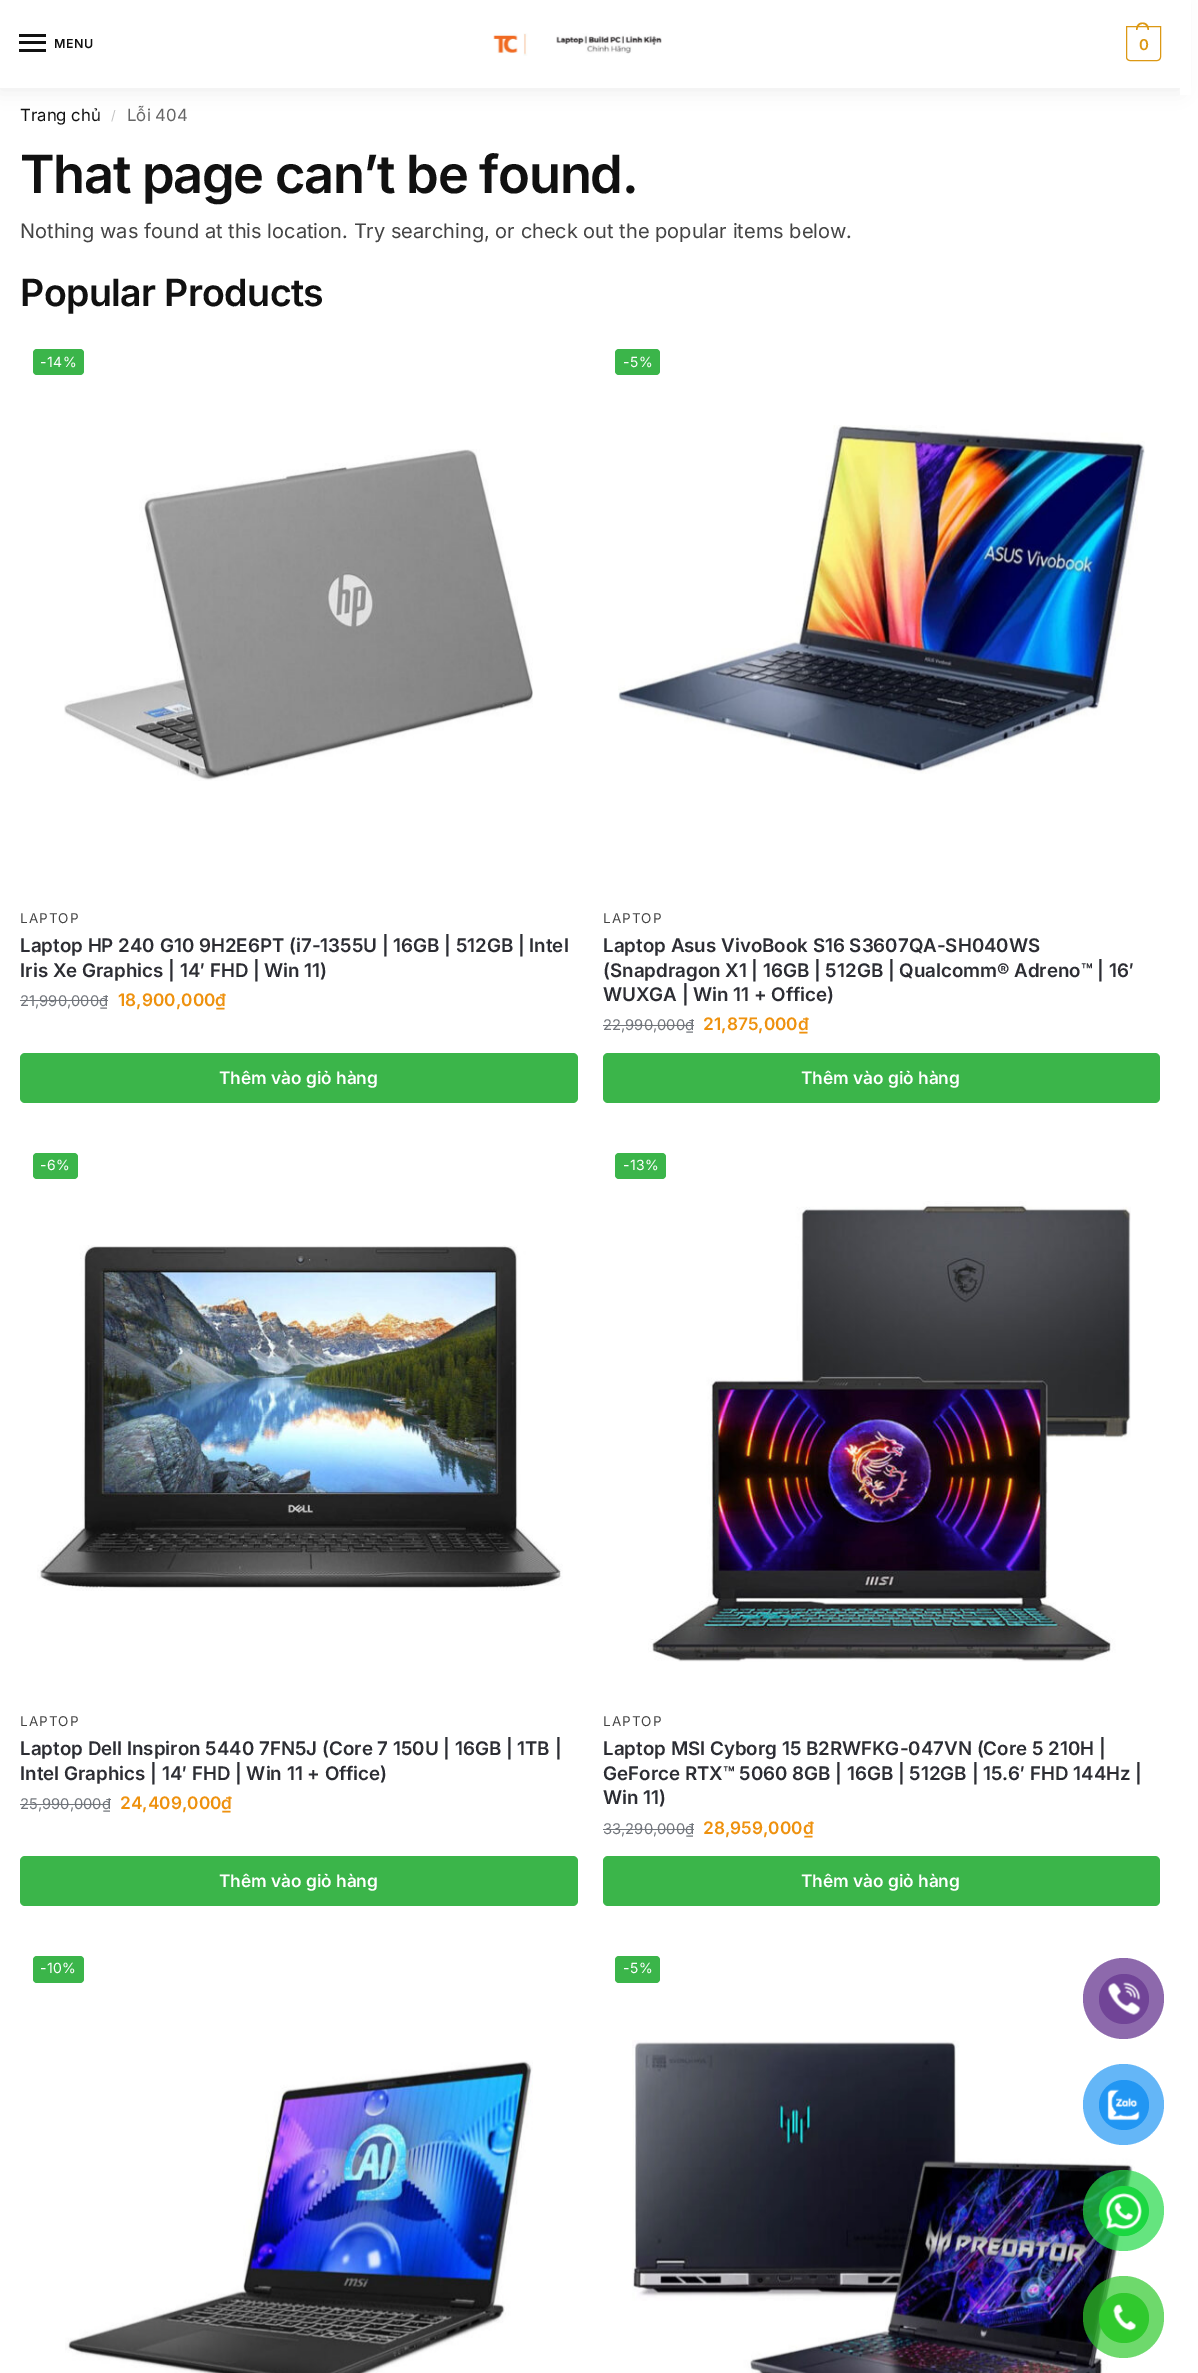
%!PS
<< /PageSize [1198 2373] /PageUsesTransparency true >> setpagedevice
/rgb { dup -16 bitshift 255 div exch dup -8 bitshift 255 and 255 div exch 255 and 255 div setrgbcolor } def
/font { [ exch dup neg 0 0 3 -1 roll 0 0 ] selectfont } def
/text { moveto show } def
/alpha { dup .setfillconstantalpha .setstrokeconstantalpha } def
/circle { newpath 0 360 arc closepath } def
/roundrect { 5 dict begin { /r /h /w /y /x } { exch def } forall
  x r add y moveto x w add y 2 copy h add r arct x w add y h add x 1 index r arct
  x y h add x y r arct x y 2 copy exch w add exch r arct closepath end } def
/shadow { 12 dict begin { /a /b /q /h /w /y /x } { exch def } forall gsave /was 0 def
  9 -2 -9 { dup b mul 4 div /e exch def 1 sub .425 mul 2.718 exch exp 1 add a .99 .min exch div /now exch def
    1 1 now sub 1 was sub div sub alpha /was now def
    w h .min e 2 mul add 0 gt { x e sub y e sub w e 2 mul add h e 2 mul add
      q e add b .6 mul add w h .min 2 div e add .min 0 .max roundrect fill } if } for grestore end } def
/picture { 5 dict begin { /h /w /y /x /name } { exch def } forall
  gsave x y translate w h scale
  w h 8 [w 0 0 h 0 0] name (r) file false 3 colorimage grestore end } def
0 .pushpdf14devicefilter
0 2373 translate 1 -1 scale
4 setmiterlimit
/s1 { /Inter-Regular 16.75 font 16#111111 rgb } def
/s2 { /Inter-Regular 13 font 16#C2C2C2 rgb } def
/s3 { /Inter-Regular 16.75 font 16#666666 rgb } def
/s4 { /Inter-Regular 20 font 16#444444 rgb } def
/s5 { /Inter-SemiBold 18.75 font 16#2C2D33 rgb } def
/s6 { /Inter-Regular 14.75 font 16#72767C rgb } def
/s7 { /Inter-SemiBold 17.25 font 16#EE910E rgb } def
/s8 { /Inter-SemiBold 17.25 font 16#FFFFFF rgb } def
16#FFFFFF rgb
0 0 1198 2373 rectfill
16#000000 rgb
0 1 1180 88 0 9.5 0.08 shadow
16#FFFFFF rgb
0 0 1180 88 rectfill
16#111111 rgb
19 34 27 3 rectfill
19 41 27 3 rectfill
/Inter-SemiBold 12.5 font
54 48 moveto 0.5 0 (MENU) ashow
19 49 27 3 rectfill
(pic1.raw) 493 33 169 23 picture
16#DC9814 rgb
1126.5 26.5 moveto 1160.5 26.5 lineto 1160.5 57 lineto 1160.5 59 1159 60.5 1157 60.5 curveto 1130 60.5 lineto 1128 60.5 1126.5 59 1126.5 57 curveto closepath stroke
1142.5 22.5 moveto 1147 22.5 1149 26 1149 30 curveto 1136 30 lineto 1136 26 1138 22.5 1142.5 22.5 curveto closepath 1142.5 24 moveto 1146 24 1147.5 27 1147.5 30 curveto 1137.5 30 lineto 1137.5 27 1139 24 1142.5 24 curveto closepath eofill
/Inter-SemiBold 15 font
1139 50 moveto -1 0 (0) ashow
16#FFFFFF rgb
1180 0 11 95 rectfill
s1
(Trang chủ) 20 121 text
s2
(/) 111 120 text
s3
(Lỗi 404) 127 121 text
/Inter-SemiBold 52.5 font
16#111111 rgb
20 193 moveto -1.4 0 (That page can’t be found.) ashow
s4
(Nothing was found at this location. Try searching, or check out the popular items below.) 20 238 text
/Inter-SemiBold 37.5 font
16#111111 rgb
20 306 moveto -0.6 0 (Popular Products) ashow
16#3BB54A rgb
33 349 51 26 4 roundrect fill
/Inter-Regular 14 font
16#FFFFFF rgb
40 367 moveto 0.5 0 (-14%) ashow
(pic2.raw) 64 449 469 332 picture
/Inter-Regular 13.5 font
16#444444 rgb
20 923 moveto 1 0 (LAPTOP) ashow
s5
(Laptop HP 240 G10 9H2E6PT \(i7-1355U | 16GB | 512GB | Intel) 20 952 text
(Iris Xe Graphics | 14′ FHD | Win 11\)) 20 977 text
s6
(21,990,000₫) 20 1006 text
20 1000 88 1 rectfill
s7
(18,900,000₫) 118 1006 text
16#3BB54A rgb
20 1053 558 50 5 roundrect fill
s8
(Thêm vào giỏ hàng) 219 1084 text
16#3BB54A rgb
615 349 45 26 4 roundrect fill
/Inter-Regular 14 font
16#FFFFFF rgb
623 367 moveto 0.5 0 (-5%) ashow
(pic3.raw) 618 425 527 349 picture
/Inter-Regular 13.5 font
16#444444 rgb
603 923 moveto 1 0 (LAPTOP) ashow
s5
(Laptop Asus VivoBook S16 S3607QA-SH040WS) 603 952 text
(\(Snapdragon X1 | 16GB | 512GB | Qualcomm® Adreno™ | 16′) 603 977 text
(WUXGA | Win 11 + Office\)) 603 1001 text
s6
(22,990,000₫) 603 1030 text
603 1025 91 1 rectfill
s7
(21,875,000₫) 703 1030 text
16#3BB54A rgb
603 1053 557 50 5 roundrect fill
s8
(Thêm vào giỏ hàng) 801 1084 text
16#3BB54A rgb
33 1153 45 26 4 roundrect fill
/Inter-Regular 14 font
16#FFFFFF rgb
40 1170 moveto 0.5 0 (-6%) ashow
(pic4.raw) 37 1245 526 346 picture
/Inter-Regular 13.5 font
16#444444 rgb
20 1726 moveto 1 0 (LAPTOP) ashow
s5
(Laptop Dell Inspiron 5440 7FN5J \(Core 7 150U | 16GB | 1TB |) 20 1755 text
(Intel Graphics | 14′ FHD | Win 11 + Office\)) 20 1780 text
s6
(25,990,000₫) 20 1809 text
20 1804 90 1 rectfill
s7
(24,409,000₫) 120 1809 text
16#3BB54A rgb
20 1856 558 50 5 roundrect fill
s8
(Thêm vào giỏ hàng) 219 1887 text
16#3BB54A rgb
615 1153 51 26 4 roundrect fill
/Inter-Regular 14 font
16#FFFFFF rgb
623 1170 moveto 0.5 0 (-13%) ashow
(pic5.raw) 648 1201 483 461 picture
/Inter-Regular 13.5 font
16#444444 rgb
603 1726 moveto 1 0 (LAPTOP) ashow
s5
(Laptop MSI Cyborg 15 B2RWFKG-047VN \(Core 5 210H |) 603 1755 text
(GeForce RTX™ 5060 8GB | 16GB | 512GB | 15.6′ FHD 144Hz |) 603 1780 text
(Win 11\)) 603 1804 text
s6
(33,290,000₫) 603 1834 text
603 1829 91 1 rectfill
s7
(28,959,000₫) 703 1834 text
16#3BB54A rgb
603 1856 557 50 5 roundrect fill
s8
(Thêm vào giỏ hàng) 801 1887 text
16#3BB54A rgb
33 1956 51 27 4 roundrect fill
/Inter-Regular 14 font
16#FFFFFF rgb
40 1973 moveto 0.5 0 (-10%) ashow
(pic6.raw) 65 2060 468 313 picture
16#3BB54A rgb
615 1956 45 27 4 roundrect fill
16#FFFFFF rgb
623 1973 moveto 0.5 0 (-5%) ashow
(pic7.raw) 632 2040 503 333 picture
16#8D69AC rgb
1123.5 1998.5 40.5 circle fill
16#714497 rgb
1124 1999 25 circle fill
(pic8.raw) 1107 1982 34 33 picture
16#64B6F7 rgb
1123.5 2104.5 40.5 circle fill
16#2196F3 rgb
1124 2105 25 circle fill
(pic9.raw) 1107 2089 33 32 picture
0.7 alpha
16#23D948 rgb
1123.5 2210.5 40.5 circle fill
1 alpha
16#1CD741 rgb
1124 2211 25 circle fill
(pic10.raw) 1098 2191 51 46 picture
0.7 alpha
16#30C92E rgb
1083 2276 81 82 40.5 roundrect fill
1 alpha
1124 2318 25 circle fill
(pic11.raw) 1113 2304 23 27 picture
.poppdf14devicefilter showpage
